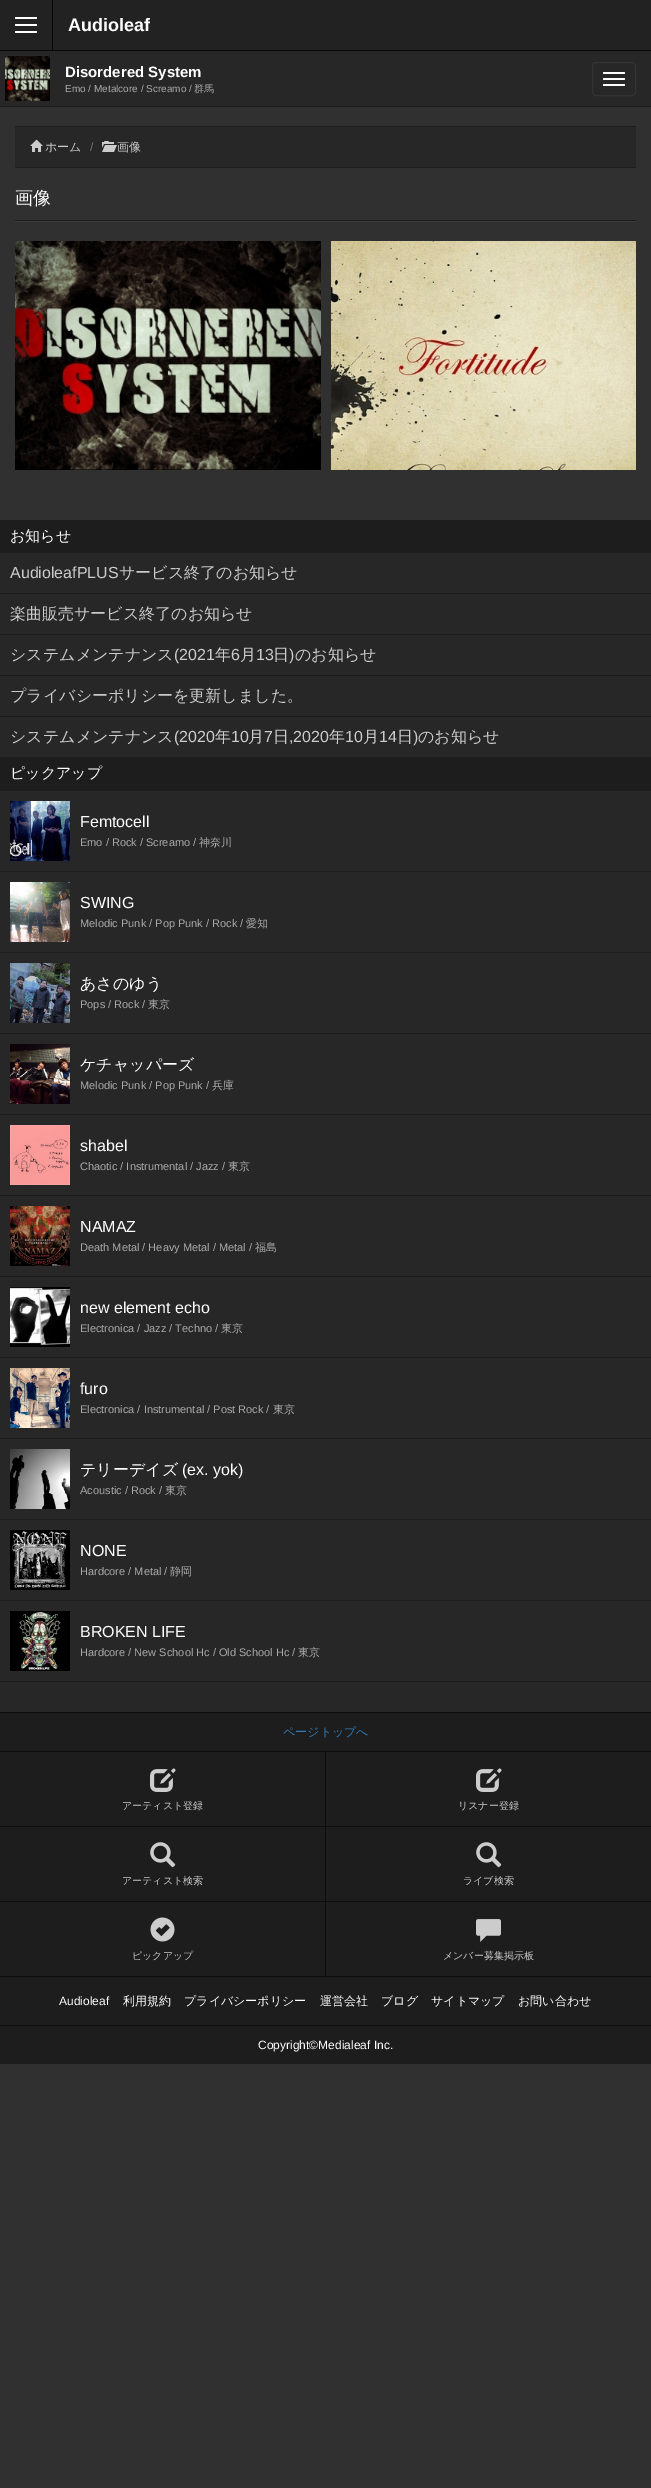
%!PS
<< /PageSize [651 2488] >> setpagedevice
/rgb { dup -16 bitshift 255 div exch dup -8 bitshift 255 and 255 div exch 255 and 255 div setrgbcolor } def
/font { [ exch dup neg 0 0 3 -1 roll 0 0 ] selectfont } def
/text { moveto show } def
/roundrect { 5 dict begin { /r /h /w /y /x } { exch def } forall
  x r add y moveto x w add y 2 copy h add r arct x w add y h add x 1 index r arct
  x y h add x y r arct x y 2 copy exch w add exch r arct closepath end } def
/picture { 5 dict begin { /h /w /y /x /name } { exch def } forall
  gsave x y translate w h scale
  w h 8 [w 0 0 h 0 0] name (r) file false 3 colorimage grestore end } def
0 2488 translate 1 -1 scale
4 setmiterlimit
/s1 { /LiberationSans-Bold 18 font 16#FFFFFF rgb } def
/s2 { /LiberationSans-Bold 15 font 16#FFFFFF rgb } def
/s3 { /LiberationSans-Regular 10 font 16#AAAAAA rgb } def
/s4 { /WenQuanYiZenHei-Medium 10 font 16#AAAAAA rgb } def
/s5 { /WenQuanYiZenHei-Medium 12 font 16#CCCCCC rgb } def
/s6 { /LiberationSans-Regular 12 font 16#777777 rgb } def
/s7 { /WenQuanYiZenHei-Medium 18 font 16#FFFFFF rgb } def
/s8 { /WenQuanYiZenHei-Medium 15 font 16#FFFFFF rgb } def
/s9 { /LiberationSans-Regular 16 font 16#CCCCCC rgb } def
/s10 { /WenQuanYiZenHei-Medium 16 font 16#CCCCCC rgb } def
/s11 { /LiberationSans-Regular 16 font 16#FFFFFF rgb } def
/s12 { /LiberationSans-Regular 11 font 16#AAAAAA rgb } def
/s13 { /WenQuanYiZenHei-Medium 11 font 16#AAAAAA rgb } def
/s14 { /WenQuanYiZenHei-Medium 16 font 16#FFFFFF rgb } def
/s15 { /WenQuanYiZenHei-Medium 12 font 16#337AB7 rgb } def
/s16 { /WenQuanYiZenHei-Medium 10 font 16#CCCCCC rgb } def
/s17 { /LiberationSans-Regular 12 font 16#FFFFFF rgb } def
/s18 { /WenQuanYiZenHei-Medium 12 font 16#FFFFFF rgb } def
16#303030 rgb
0 0 651 2488 rectfill
16#222222 rgb
0 0 651 50 rectfill
16#080808 rgb
0 50 651 1 rectfill
52 0 1 50 rectfill
16#FFFFFF rgb
15 17 22 2 1 roundrect fill
15 24 22 2 1 roundrect fill
15 31 22 2 1 roundrect fill
s1
(Audioleaf) 68 31 text
16#272727 rgb
0 51 651 55 rectfill
16#1D1D1D rgb
0 106 651 1 rectfill
(pic1.raw) 5 56 45 45 picture
s2
(Disordered System) 65 77 text
s3
(Emo / Metalcore / Screamo /) 65 92 text
s4
(群馬) 194 92 text
16#333333 rgb
592.5 62.5 43 33 3.5 roundrect stroke
16#FFFFFF rgb
603 72 22 2 1 roundrect fill
603 78 22 2 1 roundrect fill
603 84 22 2 1 roundrect fill
16#272727 rgb
15 127 621 40 rectfill
16#1D1D1D rgb
15 126 621 1 rectfill
15 167 621 1 rectfill
(pic2.raw) 30 139 13 13 picture
s5
(ホーム) 45 151 text
s6
(/) 90 151 text
(pic3.raw) 102 141 15 11 picture
s5
(画像) 117 151 text
16#3B3B3B rgb
15 221 621 1 rectfill
16#1D1D1D rgb
15 220 621 1 rectfill
s7
(画像) 15 204 text
(pic4.raw) 15 241 306 229 picture
(pic5.raw) 331 241 305 229 picture
16#1D1D1D rgb
0 520 651 33 rectfill
s8
(お知らせ) 10 541 text
16#272727 rgb
0 553 651 40 rectfill
s9
(AudioleafPLUS) 10 578 text
s10
(サービス終了のお知らせ) 119 578 text
16#272727 rgb
0 594 651 40 rectfill
16#1D1D1D rgb
0 593 651 1 rectfill
s10
(楽曲販売サービス終了のお知らせ) 10 619 text
16#272727 rgb
0 635 651 40 rectfill
16#1D1D1D rgb
0 634 651 1 rectfill
s10
(システムメンテナンス) 10 660 text
s9
(\(2021) 174 660 text
s10
(年) 215 660 text
s9
(6) 231 660 text
s10
(月) 240 660 text
s9
(13) 256 660 text
s10
(日) 273 660 text
s9
(\)) 289 660 text
s10
(のお知らせ) 295 660 text
16#272727 rgb
0 676 651 40 rectfill
16#1D1D1D rgb
0 675 651 1 rectfill
s10
(プライバシーポリシーを更新しました。) 10 701 text
16#272727 rgb
0 717 651 40 rectfill
16#1D1D1D rgb
0 716 651 1 rectfill
s10
(システムメンテナンス) 10 742 text
s9
(\(2020) 174 742 text
s10
(年) 215 742 text
s9
(10) 231 742 text
s10
(月) 248 742 text
s9
(7) 264 742 text
s10
(日) 273 742 text
s9
(,2020) 289 742 text
s10
(年) 329 742 text
s9
(10) 345 742 text
s10
(月) 363 742 text
s9
(14) 379 742 text
s10
(日) 397 742 text
s9
(\)) 413 742 text
s10
(のお知らせ) 418 742 text
16#1D1D1D rgb
0 757 651 34 rectfill
s8
(ピックアップ) 10 778 text
16#272727 rgb
0 791 651 80 rectfill
(pic6.raw) 10 801 60 60 picture
s11
(Femtocell) 80 827 text
s12
(Emo / Rock / Screamo /) 80 846 text
s13
(神奈川) 199 846 text
16#272727 rgb
0 872 651 80 rectfill
16#1D1D1D rgb
0 871 651 1 rectfill
(pic7.raw) 10 882 60 60 picture
s11
(SWING) 80 908 text
s12
(Melodic Punk / Pop Punk / Rock /) 80 927 text
s13
(愛知) 246 927 text
16#272727 rgb
0 953 651 80 rectfill
16#1D1D1D rgb
0 952 651 1 rectfill
(pic8.raw) 10 963 60 60 picture
s14
(あさのゆう) 80 989 text
s12
(Pops / Rock /) 80 1008 text
s13
(東京) 148 1008 text
16#272727 rgb
0 1034 651 80 rectfill
16#1D1D1D rgb
0 1033 651 1 rectfill
(pic9.raw) 10 1044 60 60 picture
s14
(ケチャッパーズ) 80 1070 text
s12
(Melodic Punk / Pop Punk /) 80 1089 text
s13
(兵庫) 212 1089 text
16#272727 rgb
0 1115 651 80 rectfill
16#1D1D1D rgb
0 1114 651 1 rectfill
(pic10.raw) 10 1125 60 60 picture
s11
(shabel) 80 1151 text
s12
(Chaotic / Instrumental / Jazz /) 80 1170 text
s13
(東京) 228 1170 text
16#272727 rgb
0 1196 651 80 rectfill
16#1D1D1D rgb
0 1195 651 1 rectfill
(pic11.raw) 10 1206 60 60 picture
s11
(NAMAZ) 80 1232 text
s12
(Death Metal / Heavy Metal / Metal /) 80 1251 text
s13
(福島) 255 1251 text
16#272727 rgb
0 1277 651 80 rectfill
16#1D1D1D rgb
0 1276 651 1 rectfill
(pic12.raw) 10 1287 60 60 picture
s11
(new element echo) 80 1313 text
s12
(Electronica / Jazz / Techno /) 80 1332 text
s13
(東京) 221 1332 text
16#272727 rgb
0 1358 651 80 rectfill
16#1D1D1D rgb
0 1357 651 1 rectfill
(pic13.raw) 10 1368 60 60 picture
s11
(furo) 80 1394 text
s12
(Electronica / Instrumental / Post Rock /) 80 1413 text
s13
(東京) 273 1413 text
16#272727 rgb
0 1439 651 80 rectfill
16#1D1D1D rgb
0 1438 651 1 rectfill
(pic14.raw) 10 1449 60 60 picture
s14
(テリーデイズ) 80 1475 text
s11
(\(ex. yok\)) 182 1475 text
s12
(Acoustic / Rock /) 80 1494 text
s13
(東京) 165 1494 text
16#272727 rgb
0 1520 651 80 rectfill
16#1D1D1D rgb
0 1519 651 1 rectfill
(pic15.raw) 10 1530 60 60 picture
s11
(NONE) 80 1556 text
s12
(Hardcore / Metal /) 80 1575 text
s13
(静岡) 170 1575 text
16#272727 rgb
0 1601 651 80 rectfill
16#1D1D1D rgb
0 1600 651 1 rectfill
(pic16.raw) 10 1611 60 60 picture
s11
(BROKEN LIFE) 80 1637 text
s12
(Hardcore / New School Hc / Old School Hc /) 80 1656 text
s13
(東京) 298 1656 text
16#272727 rgb
0 1682 651 30 rectfill
16#1D1D1D rgb
0 1681 651 1 rectfill
0 1713 651 351 rectfill
16#0D0D0D rgb
0 1712 651 1 rectfill
0 1751 651 1 rectfill
s15
(ページトップへ) 283 1736 text
16#0D0D0D rgb
325 1752 1 225 rectfill
0 1826 651 1 rectfill
(pic17.raw) 150 1768 26 24 picture
s16
(アーティスト登録) 122 1809 text
(pic17.raw) 476 1768 26 24 picture
(リスナー登録) 458 1809 text
16#0D0D0D rgb
0 1901 651 1 rectfill
(pic18.raw) 150 1842 26 26 picture
s16
(アーティスト検索) 122 1884 text
(pic18.raw) 476 1842 26 26 picture
(ライブ検索) 463 1884 text
16#0D0D0D rgb
0 1976 651 1 rectfill
(pic19.raw) 150 1917 25 25 picture
s16
(ピックアップ) 132 1959 text
(pic20.raw) 476 1919 25 23 picture
(メンバー募集掲示板) 443 1959 text
16#0D0D0D rgb
0 2025 651 1 rectfill
s17
(Audioleaf) 59 2005 text
s18
(利用規約) 123 2005 text
(プライバシーポリシー) 184 2005 text
(運営会社) 320 2005 text
(ブログ) 381 2005 text
(サイトマップ) 431 2005 text
(お問い合わせ) 518 2005 text
s17
(Copyright©Medialeaf Inc.) 258 2049 text
showpage
